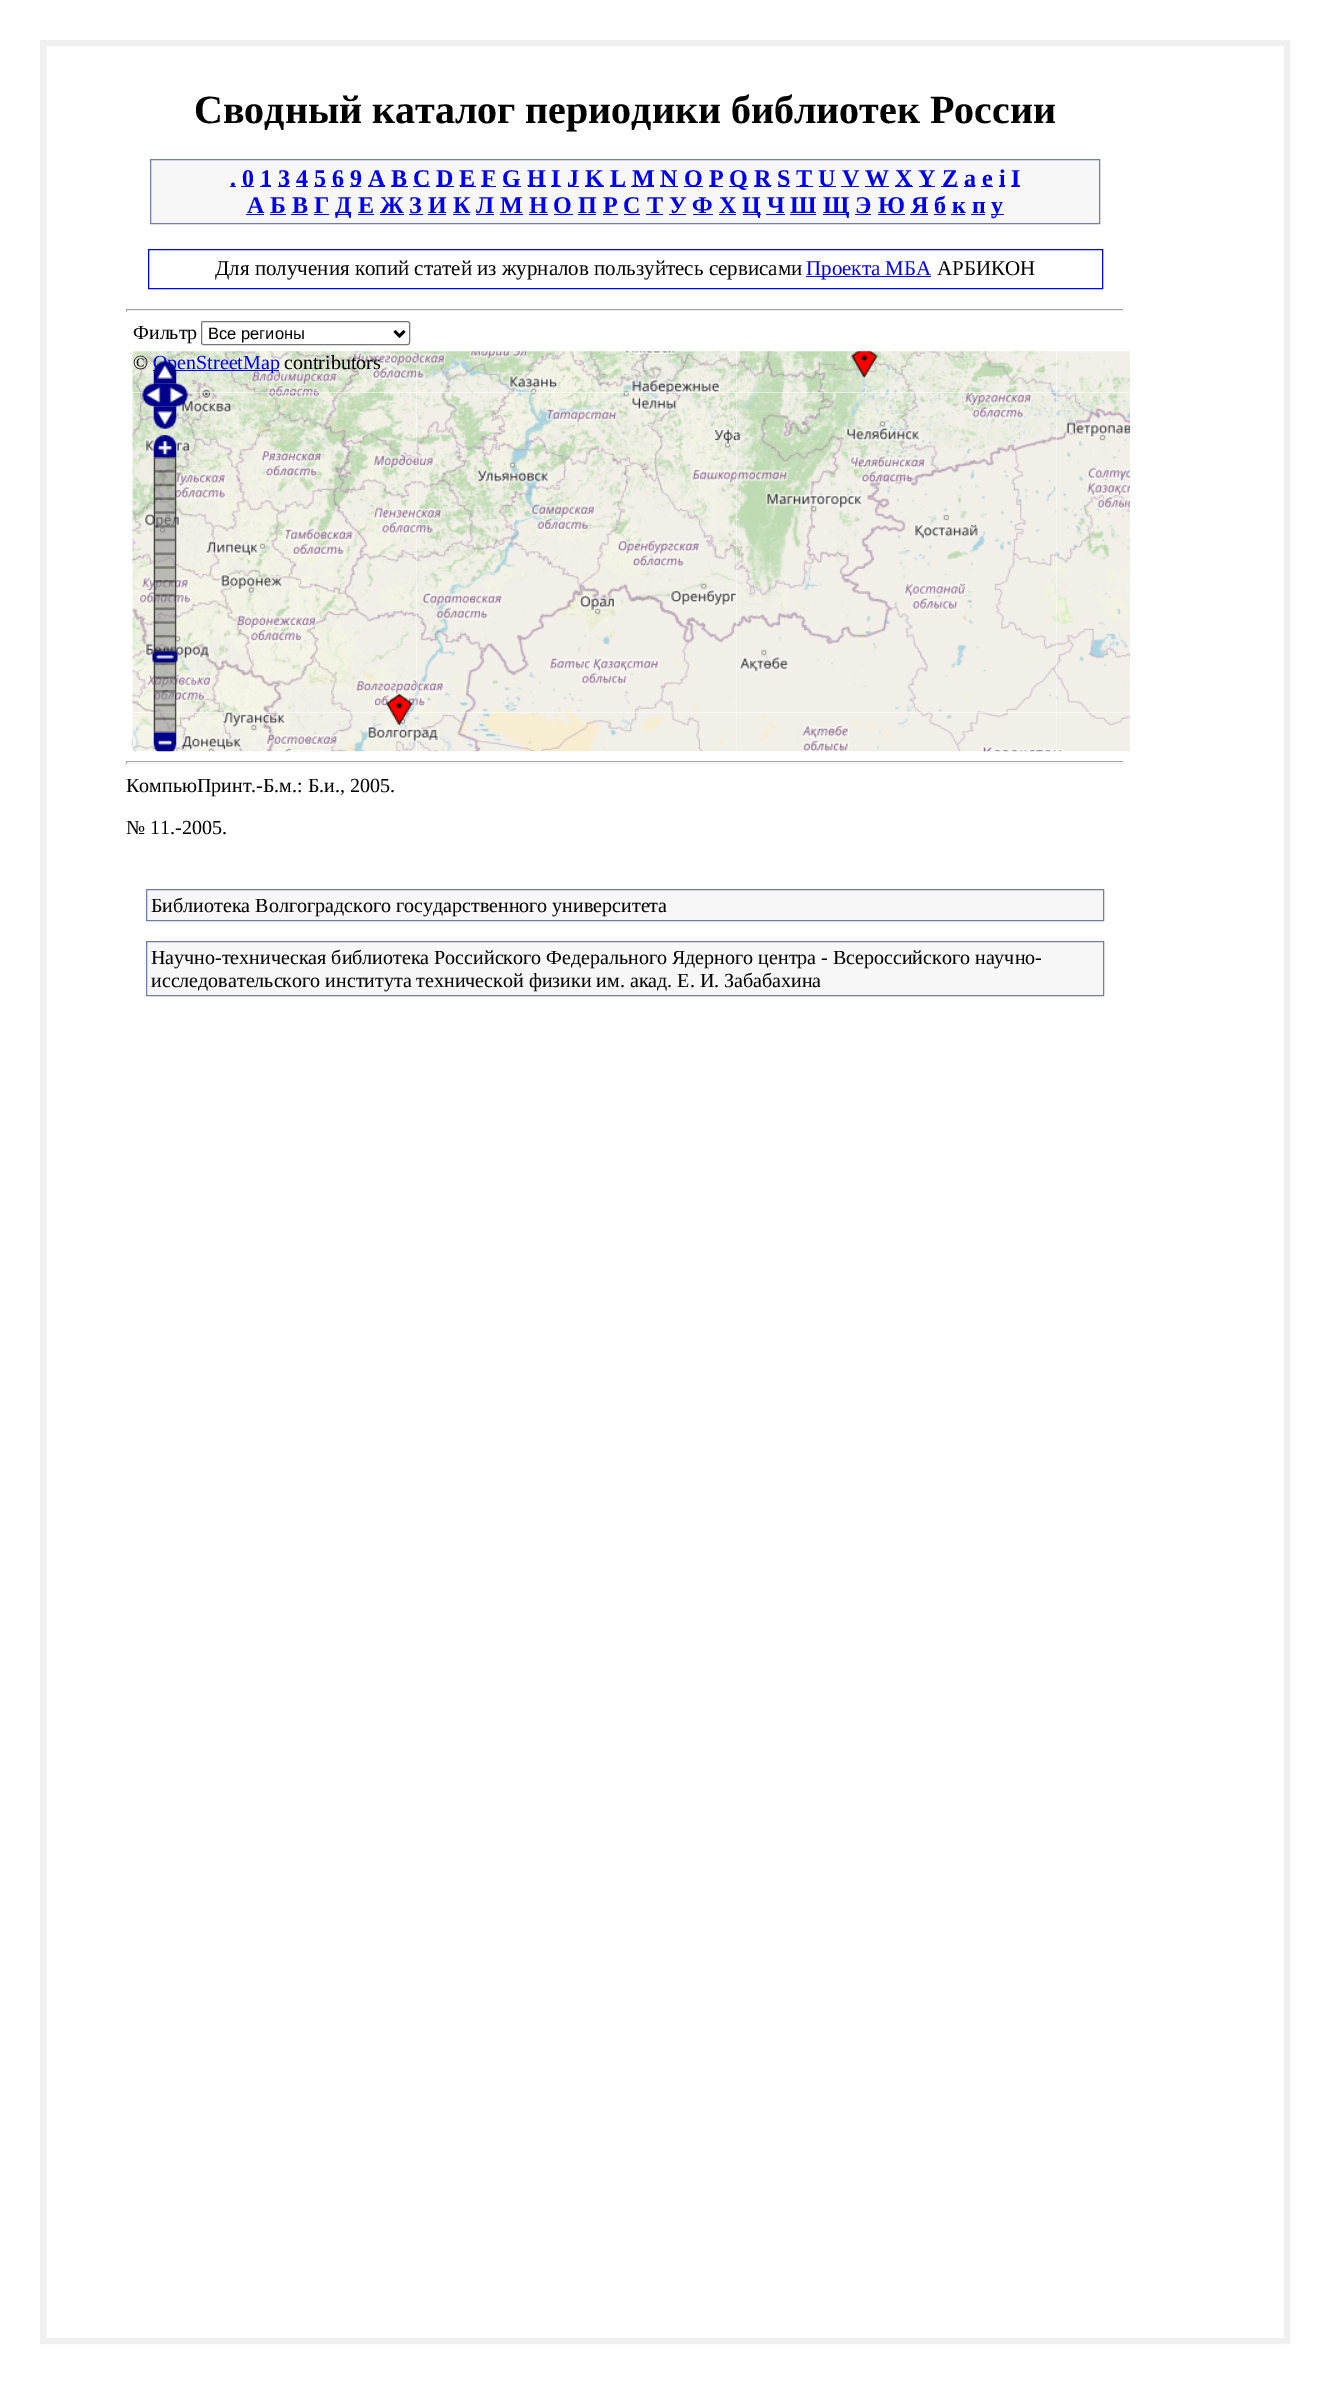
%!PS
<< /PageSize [1329 2383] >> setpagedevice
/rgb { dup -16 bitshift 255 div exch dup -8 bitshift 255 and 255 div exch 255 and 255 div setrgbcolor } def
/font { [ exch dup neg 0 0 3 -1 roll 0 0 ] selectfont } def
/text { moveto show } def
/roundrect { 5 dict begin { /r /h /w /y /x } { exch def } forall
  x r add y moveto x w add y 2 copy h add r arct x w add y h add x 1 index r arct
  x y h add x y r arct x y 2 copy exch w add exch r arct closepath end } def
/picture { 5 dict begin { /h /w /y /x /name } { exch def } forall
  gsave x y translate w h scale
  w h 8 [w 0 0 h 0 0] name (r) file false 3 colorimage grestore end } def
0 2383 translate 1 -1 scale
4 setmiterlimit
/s1 { /LiberationSerif-Bold 40 font 16#000000 rgb } def
/s2 { /LiberationSerif-Bold 24 font 16#0000EE rgb } def
/s3 { /LiberationSerif-Regular 21 font 16#000000 rgb } def
/s4 { /LiberationSerif-Regular 21 font 16#0000EE rgb } def
/s5 { /LiberationSerif-Regular 20 font 16#000000 rgb } def
/s6 { /LiberationSans-Regular 16.5 font 16#000000 rgb } def
/s7 { /LiberationSerif-Regular 20 font 16#0000EE rgb } def
16#FFFFFF rgb
0 0 1329 2383 rectfill
16#F0F0F0 rgb
6 setlinewidth
43 43 1244 2298 rectstroke
s1
(Сводный каталог периодики библиотек России) 194 123 text
16#F7F7F7 rgb
150.5 159.5 moveto 1099.5 159.5 lineto 1099.5 223.5 lineto 150.5 223.5 lineto closepath gsave fill grestore
16#727EA3 rgb
1 setlinewidth
stroke
16#0000EE rgb
230 186 6 1 rectfill
s2
(.) 230 186 text
241 186 13 1 rectfill
(0 1) 242 186 text
278 186 12 1 rectfill
(3 4) 278 186 text
314 186 12 1 rectfill
(5) 314 186 text
331 186 13 1 rectfill
(6) 332 186 text
350 186 11 1 rectfill
(9 A) 350 186 text
391 186 17 1 rectfill
(B) 391 186 text
413 186 17 1 rectfill
(C) 413 186 text
436 186 18 1 rectfill
(D E F) 436 186 text
503 186 18 1 rectfill
(G H I) 502 186 text
568 186 11 1 rectfill
(J K L M N) 567 186 text
684 186 19 1 rectfill
(O P) 684 186 text
729 186 19 1 rectfill
(Q R) 729 186 text
778 186 12 1 rectfill
(S T) 777 186 text
819 186 17 1 rectfill
(U) 818 186 text
841 186 18 1 rectfill
(V) 842 186 text
865 186 24 1 rectfill
(W X Y Z) 865 186 text
964 186 11 1 rectfill
(a) 964 186 text
981 186 12 1 rectfill
(e i І) 982 186 text
260 186 11 1 rectfill
296 186 12 1 rectfill
368 186 17 1 rectfill
460 186 16 1 rectfill
481 186 15 1 rectfill
528 186 18 1 rectfill
551 186 10 1 rectfill
585 186 19 1 rectfill
610 186 16 1 rectfill
631 186 23 1 rectfill
660 186 18 1 rectfill
709 186 14 1 rectfill
754 186 17 1 rectfill
796 186 17 1 rectfill
895 186 18 1 rectfill
919 186 16 1 rectfill
941 186 17 1 rectfill
999 186 6 1 rectfill
1011 186 9 1 rectfill
(А Б В Г) 247 213 text
246 214 18 1 rectfill
335 214 16 1 rectfill
(Д Е Ж З И К Л М Н О П Р С Т У Ф Х) 335 213 text
743 214 18 1 rectfill
(Ц Ч Ш) 742 213 text
823 214 26 1 rectfill
(Щ Э Ю Я б к п) 823 213 text
991 214 13 1 rectfill
(у) 991 213 text
270 214 16 1 rectfill
291 214 17 1 rectfill
314 214 15 1 rectfill
358 214 16 1 rectfill
380 214 24 1 rectfill
409 214 14 1 rectfill
428 214 18 1 rectfill
453 214 17 1 rectfill
476 214 18 1 rectfill
500 214 23 1 rectfill
529 214 19 1 rectfill
554 214 19 1 rectfill
578 214 18 1 rectfill
603 214 15 1 rectfill
624 214 16 1 rectfill
646 214 17 1 rectfill
669 214 17 1 rectfill
693 214 20 1 rectfill
719 214 17 1 rectfill
766 214 19 1 rectfill
790 214 26 1 rectfill
855 214 16 1 rectfill
878 214 27 1 rectfill
910 214 18 1 rectfill
934 214 12 1 rectfill
951 214 14 1 rectfill
971 214 14 1 rectfill
16#0000FF rgb
148.5 249.5 954 39 rectstroke
s3
(Для получения копий статей из журналов пользуйтесь сервисами) 215 275 text
16#0000EE rgb
806 276 125 1 rectfill
(Проекта МБА) 806 275 text
s3
(АРБИКОН) 937 275 text
16#9F9F9F rgb
126 309 998 1 rectfill
16#EEEEEE rgb
1123 309 1 3 rectfill
126 310 998 1 rectfill
16#9F9F9F rgb
126 309 1 3 rectfill
s5
(Фильтр) 133 339 text
16#767676 rgb
201.5 321.5 208 23 2 roundrect stroke
16#000000 rgb
2.5 setlinewidth
394.5 331 moveto 399.5 336 lineto 404.5 331 lineto stroke
s6
(Все регионы) 208 339 text
(pic6.raw) 416 392 321 321 picture
(pic5.raw) 132 392 285 321 picture
(pic2.raw) 416 351 320 42 picture
(pic1.raw) 132 351 285 42 picture
(pic11.raw) 736 712 320 40 picture
(pic7.raw) 736 392 321 321 picture
(pic3.raw) 736 351 321 42 picture
(pic8.raw) 1056 392 74 321 picture
(pic4.raw) 1056 351 74 42 picture
(pic9.raw) 132 712 285 40 picture
(pic10.raw) 416 712 320 40 picture
(pic12.raw) 1056 712 74 40 picture
(pic13.raw) 851 351 27 27 picture
(pic14.raw) 386 693 27 32 picture
s5
(©) 133 369 text
16#0000EE rgb
153 370 126 1 rectfill
(OpenStreetMap) 153 369 text
s5
(contributors) 284 369 text
(pic15.raw) 153 361 24 23 picture
(pic16.raw) 142 383 23 24 picture
(pic17.raw) 165 383 23 24 picture
(pic18.raw) 153 406 24 23 picture
(pic19.raw) 153 435 24 23 picture
(pic20.raw) 153 457 24 276 picture
(pic21.raw) 152 651 26 12 picture
(pic22.raw) 153 732 24 20 picture
16#9F9F9F rgb
126 761 998 1 rectfill
16#EEEEEE rgb
1123 761 1 3 rectfill
126 763 998 1 rectfill
16#9F9F9F rgb
126 761 1 3 rectfill
s5
(КомпьюПринт.-Б.м.: Б.и., 2005.) 126 792 text
(№ 11.-2005.) 126 834 text
16#F7F7F7 rgb
146.5 889.5 moveto 1103.5 889.5 lineto 1103.5 920.5 lineto 146.5 920.5 lineto closepath gsave fill grestore
16#727EA3 rgb
1 setlinewidth
stroke
s5
(Библиотека Волгоградского государственного университета) 151 912 text
16#F7F7F7 rgb
146.5 941.5 moveto 1103.5 941.5 lineto 1103.5 995.5 lineto 146.5 995.5 lineto closepath gsave fill grestore
16#727EA3 rgb
stroke
s5
(Научно-техническая библиотека Российского Федерального Ядерного центра - Всероссийского научно-) 151 964 text
(исследовательского института технической физики им. акад. Е. И. Забабахина) 151 987 text
showpage
